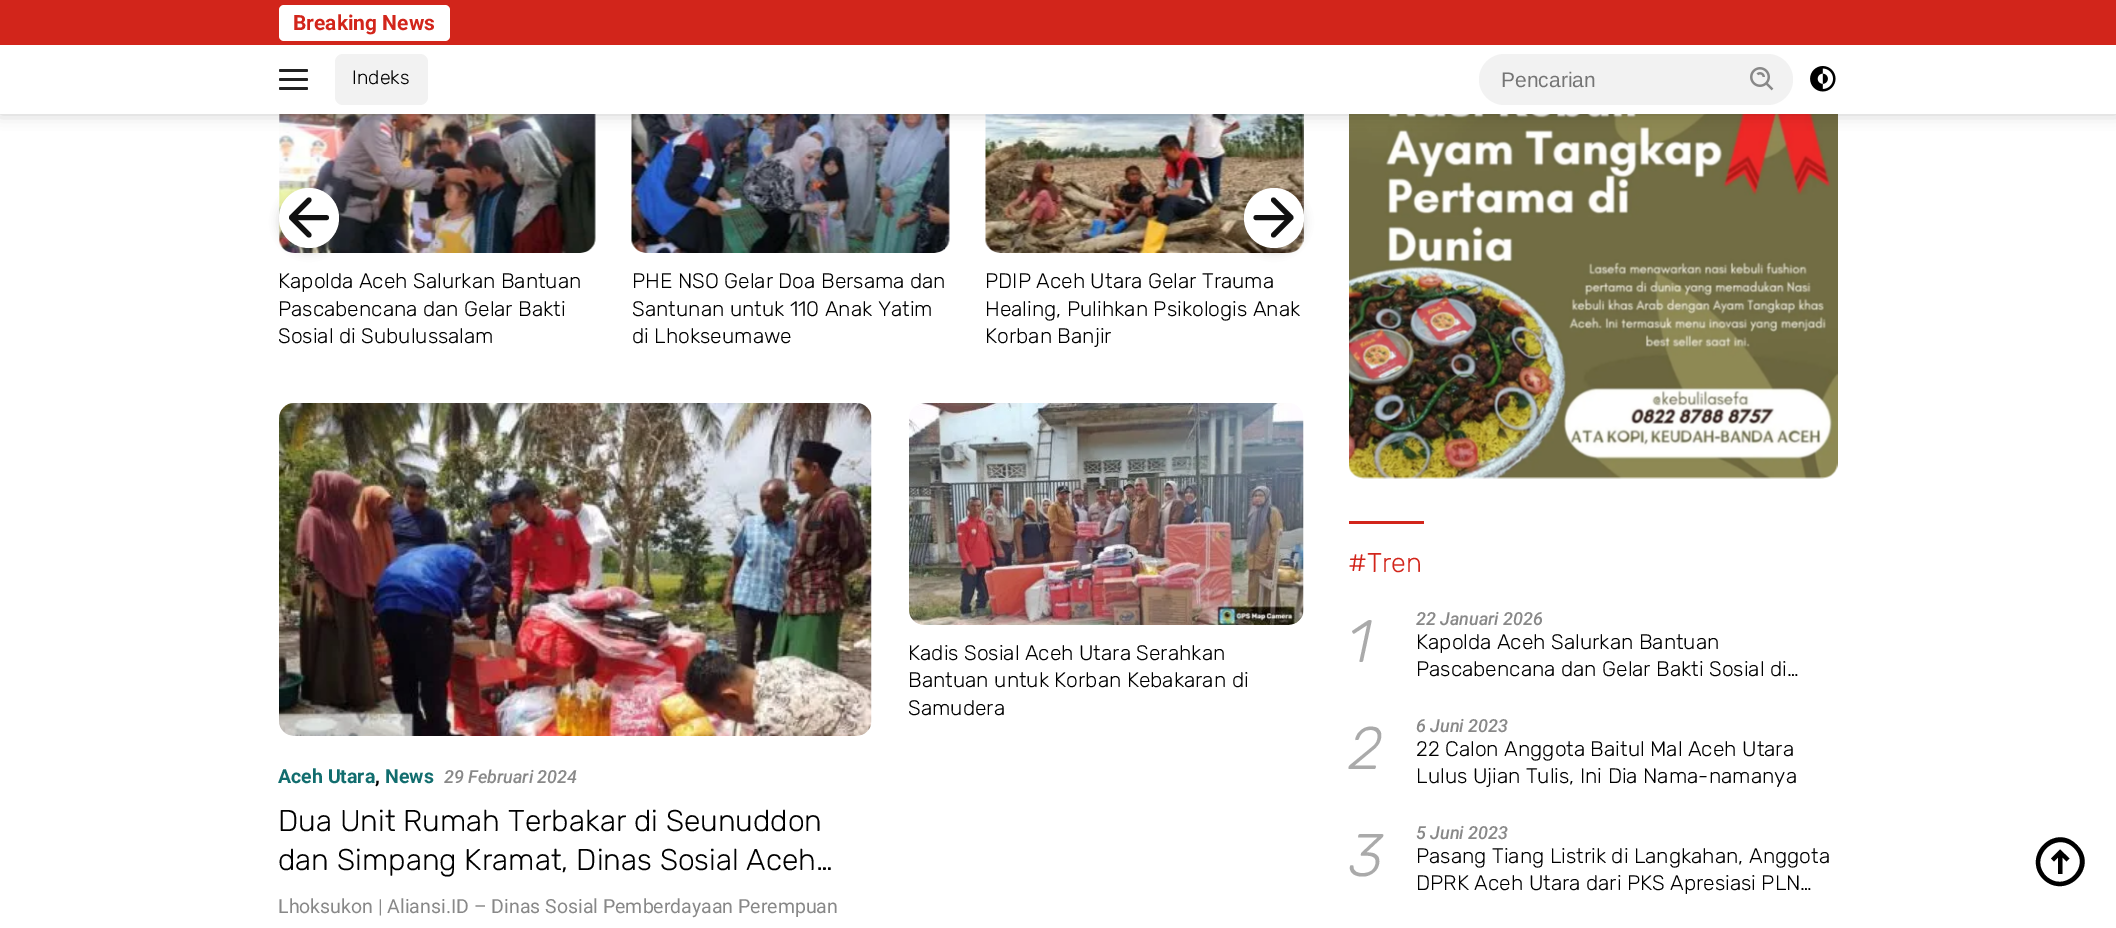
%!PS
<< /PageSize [2116 928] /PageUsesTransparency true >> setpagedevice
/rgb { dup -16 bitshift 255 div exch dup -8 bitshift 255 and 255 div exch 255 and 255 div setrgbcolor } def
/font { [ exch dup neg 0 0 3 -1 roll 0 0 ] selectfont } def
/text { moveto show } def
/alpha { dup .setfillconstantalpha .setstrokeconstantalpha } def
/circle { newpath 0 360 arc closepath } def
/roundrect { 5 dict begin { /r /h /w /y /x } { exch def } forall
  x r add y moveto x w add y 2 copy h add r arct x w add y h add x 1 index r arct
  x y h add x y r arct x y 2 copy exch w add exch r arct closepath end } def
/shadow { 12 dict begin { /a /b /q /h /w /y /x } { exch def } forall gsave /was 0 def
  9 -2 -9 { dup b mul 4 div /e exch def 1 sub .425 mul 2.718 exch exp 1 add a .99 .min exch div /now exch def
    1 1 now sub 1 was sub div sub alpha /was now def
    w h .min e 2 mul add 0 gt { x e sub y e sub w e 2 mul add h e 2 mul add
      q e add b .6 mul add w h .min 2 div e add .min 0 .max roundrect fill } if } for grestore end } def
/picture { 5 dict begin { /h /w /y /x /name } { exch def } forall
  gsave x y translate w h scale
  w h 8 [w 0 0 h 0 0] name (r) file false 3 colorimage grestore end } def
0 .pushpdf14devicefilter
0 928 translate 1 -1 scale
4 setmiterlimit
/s1 { /Roboto-Bold 21 font 16#D2251B rgb } def
/s2 { /Rubik-Light 19.5 font 16#000000 rgb } def
/s3 { /LiberationSans-Regular 21 font 16#757575 rgb } def
/s4 { /Rubik-Light 21 font 16#000000 rgb } def
/s5 { /Roboto-Bold 19.5 font 16#116D6E rgb } def
/s6 { /Roboto-Bold 19.5 font 16#000000 rgb } def
/s7 { /Roboto-MediumItalic 18 font 16#888888 rgb } def
/s8 { /Rubik-Light 30 font 16#000000 rgb } def
/s9 { /Roboto-Regular 19.5 font 16#888888 rgb } def
/s10 { /Rubik-Light 27 font 16#D2251B rgb } def
/s11 { /Rubik-LightItalic 60 font 16#AAAAAA rgb } def
16#FFFFFF rgb
0 0 2116 928 rectfill
(pic3.raw) 279 114 317 139 picture
(pic4.raw) 631 114 319 139 picture
(pic5.raw) 985 114 319 139 picture
(pic8.raw) 1349 114 489 365 picture
16#000000 rgb
0 0 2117 114 0 7.5 0.2 shadow
16#FFFFFF rgb
0 45 2116 69 rectfill
16#D2251B rgb
0 0 2116 45 rectfill
16#FFFFFF rgb
279 5 171 36 5 roundrect fill
s1
(Breaking News) 293 30 text
16#222222 rgb
279 69 29 3 1.5 roundrect fill
279 78 29 3 1.5 roundrect fill
279 87 29 3 1.5 roundrect fill
16#F2F2F2 rgb
335 54 93 51 8 roundrect fill
s2
(Indeks) 352 84 text
16#F2F2F2 rgb
1479 54 314 51 25.5 roundrect fill
s3
(Pencarian) 1501 87 text
(pic1.raw) 1750 67 24 24 picture
(pic2.raw) 1810 66 26 26 picture
16#333333 rgb
279 192 60 60 30 4.5 0.2 shadow
16#FFFFFF rgb
309 218 30 circle fill
16#111111 rgb
5 setlinewidth
1 setlinecap
1 setlinejoin
326.5 217.5 moveto 291.5 217.5 lineto 309 235 moveto 291.5 217.5 lineto 309 200 lineto stroke
16#333333 rgb
1244 192 60 60 30 4.5 0.2 shadow
16#FFFFFF rgb
1274 218 30 circle fill
16#111111 rgb
1256 217.5 moveto 1291 217.5 lineto 1273.5 200 moveto 1291 217.5 lineto 1273.5 235 lineto stroke
s4
(Kapolda Aceh Salurkan Bantuan) 278 288 text
(Pascabencana dan Gelar Bakti) 278 316 text
(Sosial di Subulussalam) 278 343 text
(PHE NSO Gelar Doa Bersama dan) 632 288 text
(Santunan untuk 110 Anak Yatim) 632 316 text
(di Lhokseumawe) 632 343 text
(PDIP Aceh Utara Gelar Trauma) 985 288 text
(Healing, Pulihkan Psikologis Anak) 985 316 text
(Korban Banjir) 985 343 text
(pic6.raw) 909 403 395 222 picture
(Kadis Sosial Aceh Utara Serahkan) 908 660 text
(Bantuan untuk Korban Kebakaran di) 908 687 text
(Samudera) 908 715 text
(pic7.raw) 279 403 593 333 picture
s5
(Aceh Utara) 278 783 text
s6
(,) 375 783 text
s5
(News) 385 783 text
s7
(29 Februari 2024) 444 783 text
s8
(Dua Unit Rumah Terbakar di Seunuddon) 278 831 text
(dan Simpang Kramat, Dinas Sosial Aceh…) 278 870 text
s9
(Lhoksukon | Aliansi.ID – Dinas Sosial Pemberdayaan Perempuan) 278 913 text
16#D2251B rgb
1349 521 75 3 rectfill
s10
(#Tren) 1348 572 text
s11
(1) 1348 662 text
s7
(22 Januari 2026) 1416 625 text
s4
(Kapolda Aceh Salurkan Bantuan) 1416 649 text
(Pascabencana dan Gelar Bakti Sosial di…) 1416 676 text
s11
(2) 1348 769 text
s7
(6 Juni 2023) 1416 732 text
s4
(22 Calon Anggota Baitul Mal Aceh Utara) 1416 756 text
(Lulus Ujian Tulis, Ini Dia Nama-namanya) 1416 783 text
s11
(3) 1348 876 text
s7
(5 Juni 2023) 1416 839 text
s4
(Pasang Tiang Listrik di Langkahan, Anggota) 1416 863 text
(DPRK Aceh Utara dari PKS Apresiasi PLN…) 1416 890 text
2066.5 861.5 moveto 2069.5 858.5 lineto 2060 849.5 lineto 2051 858.5 lineto 2054 861.5 lineto 2058 857.5 lineto 2058 874 lineto 2062.5 874 lineto 2062.5 857.5 lineto closepath fill
2077 845 moveto 2055 822 2021 856 2043 879 curveto 2066 901 2100 867 2077 845 curveto closepath 2074 848 moveto 2056 830 2028 857 2046 876 curveto 2065 894 2092 866 2074 848 curveto closepath eofill
.poppdf14devicefilter showpage
